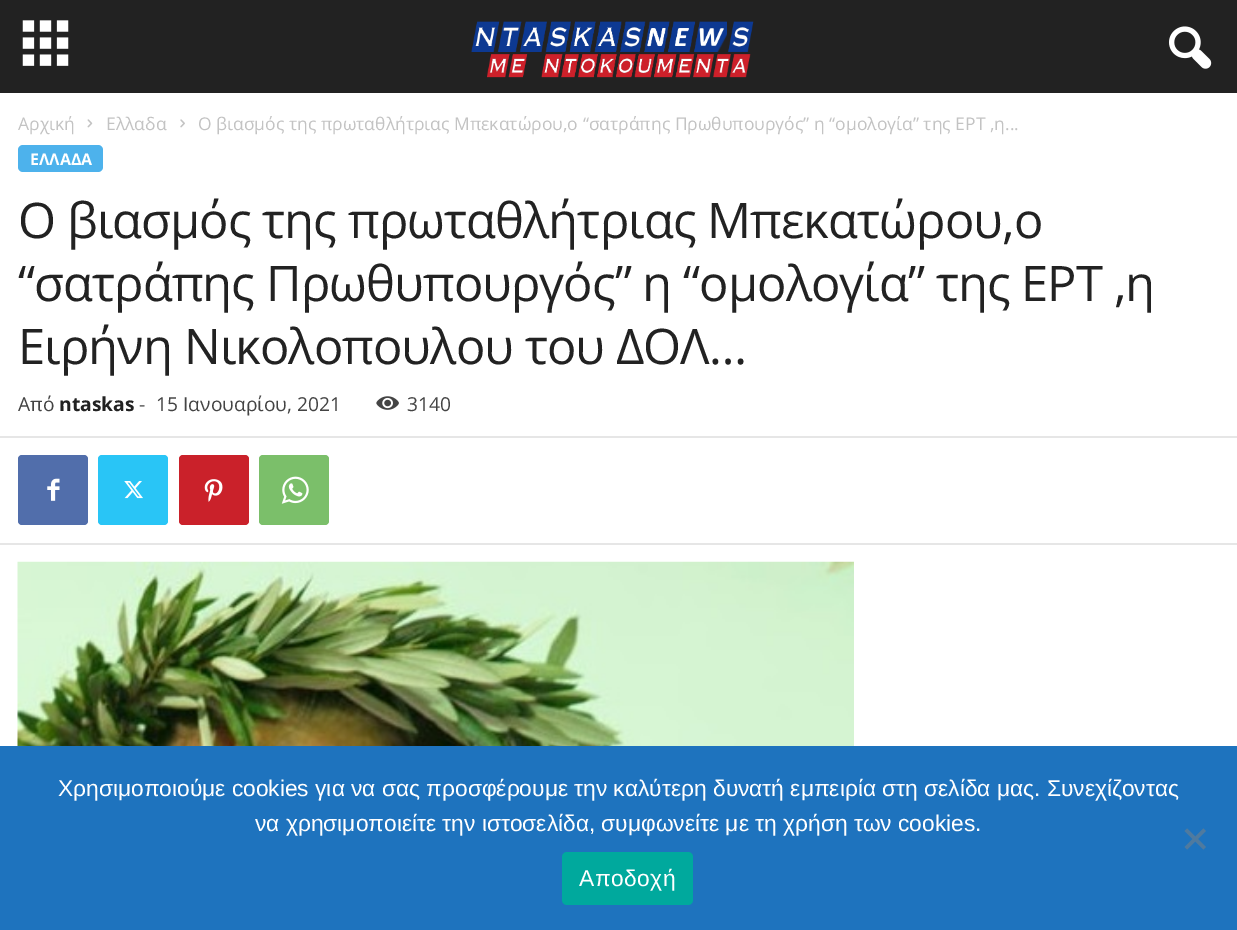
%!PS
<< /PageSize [1237 930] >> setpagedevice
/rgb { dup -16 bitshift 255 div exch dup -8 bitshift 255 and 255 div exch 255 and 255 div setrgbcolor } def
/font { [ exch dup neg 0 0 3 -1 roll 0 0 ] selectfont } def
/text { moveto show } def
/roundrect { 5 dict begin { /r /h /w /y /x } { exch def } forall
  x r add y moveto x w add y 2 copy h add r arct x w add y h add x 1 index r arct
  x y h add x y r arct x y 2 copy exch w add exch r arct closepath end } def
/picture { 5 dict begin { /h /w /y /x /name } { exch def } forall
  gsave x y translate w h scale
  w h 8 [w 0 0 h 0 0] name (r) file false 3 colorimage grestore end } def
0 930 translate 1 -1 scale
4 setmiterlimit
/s1 { /OpenSans-Regular 17.5 font 16#C3C3C3 rgb } def
/s2 { /OpenSans-Bold 16 font 16#FFFFFF rgb } def
/s3 { /OpenSans-Regular 19.25 font 16#444444 rgb } def
/s4 { /OpenSans-Bold 19.25 font 16#222222 rgb } def
/s5 { /LiberationSans-Regular 22.75 font 16#FFFFFF rgb } def
16#FFFFFF rgb
0 0 1237 930 rectfill
16#222222 rgb
0 0 1237 93 rectfill
(pic1.raw) 22 20 47 46 picture
(pic2.raw) 471 21 283 57 picture
(pic3.raw) 1169 26 43 43 picture
s1
(Αρχική) 18 130 text
(pic4.raw) 87 119 6 9 picture
(Ελλαδα) 106 130 text
(pic5.raw) 180 119 5 9 picture
(Ο βιασμός της πρωταθλήτριας Μπεκατώρου,ο “σατράπης Πρωθυπουργός” η “ομολογία” της ΕΡΤ ,η...) 198 130 text
16#4DB2EC rgb
18 145 85 27 5 roundrect fill
s2
(ΕΛΛΑΔΑ) 30 165 text
/OpenSans-Regular 49 font
16#222222 rgb
18 238 moveto -1 0 (Ο βιασμός της πρωταθλήτριας Μπεκατώρου,ο) ashow
18 301 moveto -1 0 (“σατράπης Πρωθυπουργός” η “ομολογία” της ΕΡΤ ,η) ashow
18 364 moveto -1 0 (Ειρήνη Νικολοπουλου του ΔΟΛ…) ashow
s3
(Από) 18 411 text
s4
(ntaskas) 59 411 text
s3
(-) 139 411 text
(15 Ιανουαρίου, 2021) 156 411 text
(pic6.raw) 376 396 23 14 picture
(3140) 407 411 text
16#E6E6E6 rgb
0 436 1237 2 rectfill
16#516EAB rgb
18 455 70 70 4 roundrect fill
(pic7.raw) 47 478 13 23 picture
16#29C5F6 rgb
98 455 70 70 4 roundrect fill
(pic8.raw) 124 481 19 18 picture
16#CA212A rgb
179 455 70 70 4 roundrect fill
(pic9.raw) 204 479 19 23 picture
16#7BBF6A rgb
259 455 70 70 4 roundrect fill
(pic10.raw) 281 476 28 28 picture
16#E6E6E6 rgb
0 543 1237 2 rectfill
(pic11.raw) 17 561 837 185 picture
16#1E73BE rgb
0 746 1237 184 rectfill
s5
(Χρησιμοποιούμε cookies για να σας προσφέρουμε την καλύτερη δυνατή εμπειρία στη σελίδα μας. Συνεχίζοντας) 58 796 text
(να χρησιμοποιείτε την ιστοσελίδα, συμφωνείτε με τη χρήση των cookies.) 255 831 text
16#4F7A9F rgb
1203.5 828.5 moveto 1206 831 lineto 1187 849.5 lineto 1184.5 847 lineto closepath fill
1184.5 831 moveto 1187 828.5 lineto 1206 847 lineto 1203.5 849.5 lineto closepath fill
16#00A99D rgb
562 852 131 53 5 roundrect fill
16#FFFFFF rgb
579 886 moveto 0.5 0 (Αποδοχή) ashow
showpage
